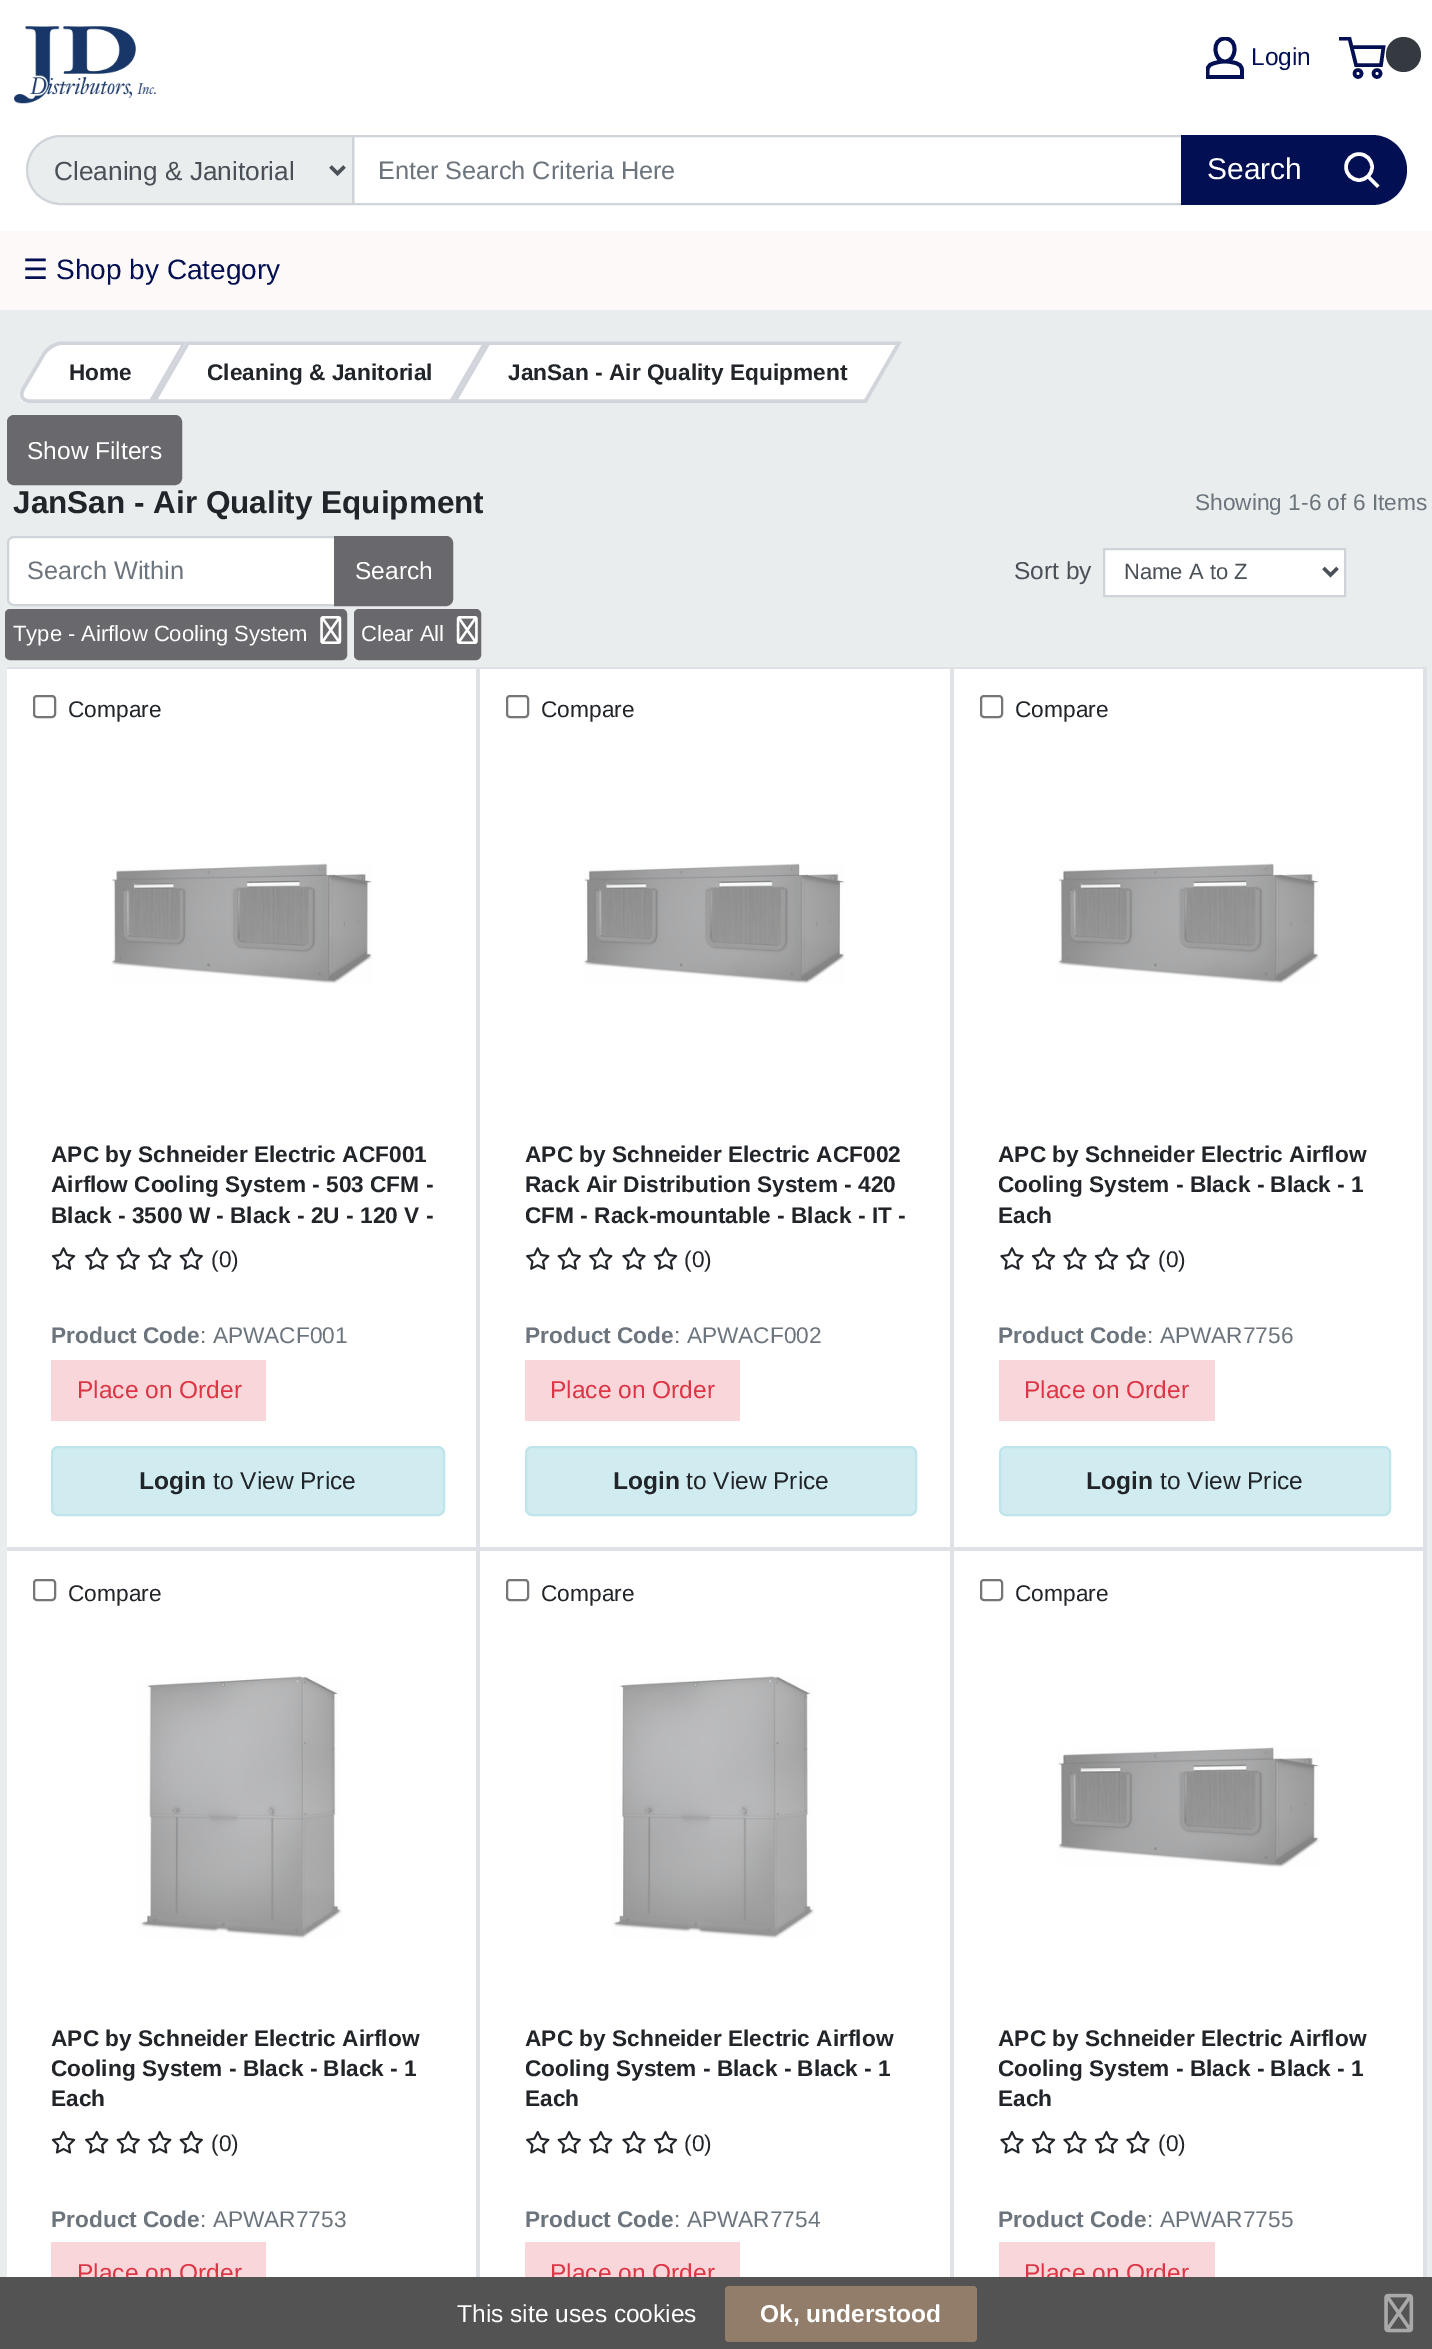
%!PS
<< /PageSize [1432 2349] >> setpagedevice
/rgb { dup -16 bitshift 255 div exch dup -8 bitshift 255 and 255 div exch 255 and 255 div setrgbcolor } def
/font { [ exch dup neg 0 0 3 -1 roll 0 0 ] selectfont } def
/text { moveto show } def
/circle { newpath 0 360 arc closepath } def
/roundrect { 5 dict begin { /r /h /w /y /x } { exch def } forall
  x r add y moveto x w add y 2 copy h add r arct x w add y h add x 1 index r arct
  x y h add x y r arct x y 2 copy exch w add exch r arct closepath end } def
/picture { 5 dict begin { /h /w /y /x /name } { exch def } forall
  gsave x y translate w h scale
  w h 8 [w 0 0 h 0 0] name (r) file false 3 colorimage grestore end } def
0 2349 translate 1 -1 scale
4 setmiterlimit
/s1 { /LiberationSans-Regular 24.5 font 16#020F52 rgb } def
/s2 { /LiberationSans-Regular 26.25 font 16#495057 rgb } def
/s3 { /LiberationSans-Regular 25.25 font 16#6C757D rgb } def
/s4 { /LiberationSans-Regular 30 font 16#FFFFFF rgb } def
/s5 { /DejaVuSans-Regular 28 font 16#020F52 rgb } def
/s6 { /LiberationSans-Regular 28 font 16#020F52 rgb } def
/s7 { /LiberationSans-Bold 22.7 font 16#212529 rgb } def
/s8 { /LiberationSans-Regular 24.5 font 16#FFFFFF rgb } def
/s9 { /LiberationSans-Bold 31.5 font 16#212529 rgb } def
/s10 { /LiberationSans-Regular 22.7 font 16#6C757D rgb } def
/s11 { /LiberationSans-Regular 24.5 font 16#495057 rgb } def
/s12 { /LiberationSans-Regular 22 font 16#495057 rgb } def
/s13 { /LiberationSans-Regular 22 font 16#FFFFFF rgb } def
/s14 { /LiberationSans-Regular 22.7 font 16#212529 rgb } def
/s15 { /LiberationSans-Bold 22.7 font 16#6C757D rgb } def
/s16 { /LiberationSans-Regular 24.5 font 16#DC3545 rgb } def
/s17 { /LiberationSans-Bold 24.5 font 16#212529 rgb } def
/s18 { /LiberationSans-Regular 24.5 font 16#212529 rgb } def
/s19 { /LiberationSans-Bold 24.5 font 16#FFFFFF rgb } def
16#EAEDED rgb
0 0 1432 2349 rectfill
16#FFFFFF rgb
0 0 1432 231 rectfill
gsave
1206 37 38 42 rectclip
16#020F52 rgb
3.8 setlinewidth
1225 61.5 moveto 1228.5 61.5 1232 62 1235.5 63 curveto 1243.5 65.5 1242 69.5 1242 77 curveto 1207.5 77 lineto 1207.5 69 1206 65 1215 63 curveto 1218 62 1221.5 61.5 1225 61.5 curveto closepath 1225 61.5 moveto 1213.5 61.5 1211 38.5 1225 38.5 curveto 1239 38.5 1236.5 61.5 1225 61.5 curveto closepath stroke
grestore
s1
(Login) 1251 65 text
gsave
1339 37 47 42 rectclip
3.5 setlinewidth
1351.5 47 moveto 1383.5 47 lineto 1381 65 lineto 1356 65 lineto 1349.5 38.5 lineto 1339 38.5 lineto stroke
grestore
16#343A40 rgb
1403.5 54.5 17.5 circle fill
16#020F52 rgb
3.5 setlinewidth
1358 73.5 3.5 circle stroke
1377 73.5 3.5 circle stroke
(pic1.raw) 14 26 142 78 picture
16#EAEDED rgb
61 136 moveto 351.5 136 lineto 352.5 136 353 136.5 353 137.5 curveto 353 202.5 lineto 353 203.5 352.5 204 351.5 204 curveto 61 204 lineto 42 204 27 189 27 170 curveto 27 151 42 136 61 136 curveto closepath gsave fill grestore
16#CED4DA rgb
2 setlinewidth
stroke
16#495057 rgb
3.5 setlinewidth
330.5 166.5 moveto 337.5 173.5 lineto 344.5 166.5 lineto stroke
s2
(Cleaning & Janitorial) 54 180 text
16#CED4DA rgb
2 setlinewidth
353 136 829 68 rectstroke
s3
(Enter Search Criteria Here) 378 179 text
16#020F52 rgb
1181 135 moveto 1372 135 lineto 1391.5 135 1407 150.5 1407 170 curveto 1407 189.5 1391.5 205 1372 205 curveto 1181 205 lineto closepath fill
s4
(Search) 1207 179 text
3.5 setlinewidth
2 setlinecap
1377 185.5 moveto 1368.5 177 lineto stroke
0 setlinecap
1359 167 13 circle stroke
16#FDF9F9 rgb
0 231 1432 79 rectfill
s5
(☰) 23 279 text
s6
(Shop by Category) 56 279 text
16#FFFFFF rgb
63 341 moveto 187 341 lineto 152 403 lineto 28 403 lineto 20 403 17 396 22 389 curveto 41 355 lineto 46 348 55 341 63 341 curveto closepath fill
16#D1D5DB rgb
62 343 moveto 184.5 343 lineto 151 401 lineto 29 401 lineto 22 401 19.5 395.5 23.5 388.5 curveto 43 355.5 lineto 46.5 348.5 55.5 343 62 343 curveto closepath stroke
s7
(Home) 69 380 text
16#FFFFFF rgb
187 341 moveto 488 341 lineto 452 403 lineto 152 403 lineto closepath fill
16#D1D5DB rgb
188 343 moveto 485 343 lineto 451.5 401 lineto 154.5 401 lineto closepath stroke
s7
(Cleaning & Janitorial) 207 380 text
16#FFFFFF rgb
488 341 moveto 902 341 lineto 866 403 lineto 452 403 lineto closepath fill
16#D1D5DB rgb
488.5 343 moveto 899 343 lineto 865.5 401 lineto 455 401 lineto closepath stroke
s7
(JanSan - Air Quality Equipment) 508 380 text
16#68686D rgb
8 416 173 68 6 roundrect gsave fill grestore
2 setlinewidth
stroke
s8
(Show Filters) 27 459 text
s9
(JanSan - Air Quality Equipment) 13 513 text
s10
(Showing 1-6 of 6 Items) 1195 510 text
16#FFFFFF rgb
13 537 moveto 334 537 lineto 334 604 lineto 13 604 lineto 11 604 9 602 9 600 curveto 9 541 lineto 9 539 11 537 13 537 curveto closepath fill
16#CED4DA rgb
14 537 moveto 335 537 lineto 335 605 lineto 14 605 lineto 10.5 605 8 602.5 8 599 curveto 8 543 lineto 8 539.5 10.5 537 14 537 curveto closepath stroke
s3
(Search Within) 27 579 text
16#68686D rgb
335 537 moveto 446 537 lineto 449.5 537 452 539.5 452 543 curveto 452 599 lineto 452 602.5 449.5 605 446 605 curveto 335 605 lineto closepath gsave fill grestore
stroke
s8
(Search) 355 579 text
s11
(Sort by) 1014 579 text
16#FFFFFF rgb
1104 549 moveto 1345 549 lineto 1345 596 lineto 1104 596 lineto closepath gsave fill grestore
16#CED4DA rgb
stroke
16#495057 rgb
3.5 setlinewidth
1323.5 568 moveto 1330.5 575 lineto 1337.5 568 lineto stroke
s12
(Name A to Z) 1124 579 text
16#68686D rgb
6 610 340 49 4 roundrect gsave fill grestore
2 setlinewidth
stroke
s13
(Type - Airflow Cooling System) 13 641 text
(pic2.raw) 320 616 22 28 picture
16#68686D rgb
355 610 125 49 4 roundrect gsave fill grestore
stroke
s13
(Clear All) 361 641 text
(pic3.raw) 456 616 22 28 picture
7 669 1416 1608 rectfill
16#DEE2E6 rgb
7 667 1419 2 rectfill
476 667 4 882 rectfill
7 1547 473 4 rectfill
16#767676 rgb
34 696 21 21 3 roundrect stroke
s14
(Compare) 68 717 text
(pic4.raw) 111 863 262 121 picture
s7
(APC by Schneider Electric ACF001) 51 1162 text
(Airflow Cooling System - 503 CFM -) 51 1192 text
(Black - 3500 W - Black - 2U - 120 V -) 51 1223 text
(pic5.raw) 51 1247 25 23 picture
(pic6.raw) 85 1247 24 23 picture
(pic7.raw) 116 1247 24 23 picture
(pic6.raw) 148 1247 24 23 picture
(pic7.raw) 179 1247 24 23 picture
s14
(\(0\)) 211 1267 text
s15
(Product Code) 51 1343 text
s10
(: APWACF001) 200 1343 text
16#F8D6D9 rgb
51 1360 215 61 rectfill
s16
(Place on Order) 77 1398 text
16#D1ECF1 rgb
52 1447 392 68 6 roundrect gsave fill grestore
16#BEE5EB rgb
stroke
s17
(Login) 139 1489 text
s18
(to View Price) 213 1489 text
16#DEE2E6 rgb
950 667 4 882 rectfill
480 1547 474 4 rectfill
16#767676 rgb
507 696 21 21 3 roundrect stroke
s14
(Compare) 541 717 text
(pic8.raw) 583 863 262 121 picture
s7
(APC by Schneider Electric ACF002) 525 1162 text
(Rack Air Distribution System - 420) 525 1192 text
(CFM - Rack-mountable - Black - IT -) 525 1223 text
(pic6.raw) 526 1247 24 23 picture
(pic7.raw) 557 1247 24 23 picture
(pic6.raw) 589 1247 24 23 picture
(pic9.raw) 622 1247 24 23 picture
(pic5.raw) 653 1247 25 23 picture
s14
(\(0\)) 684 1267 text
s15
(Product Code) 525 1343 text
s10
(: APWACF002) 674 1343 text
16#F8D6D9 rgb
525 1360 215 61 rectfill
s16
(Place on Order) 550 1398 text
16#D1ECF1 rgb
526 1447 390 68 6 roundrect gsave fill grestore
16#BEE5EB rgb
stroke
s17
(Login) 613 1489 text
s18
(to View Price) 686 1489 text
16#DEE2E6 rgb
1423 667 4 882 rectfill
954 1547 472 4 rectfill
16#767676 rgb
981 696 21 21 3 roundrect stroke
s14
(Compare) 1015 717 text
(pic10.raw) 1057 863 262 121 picture
s7
(APC by Schneider Electric Airflow) 998 1162 text
(Cooling System - Black - Black - 1) 998 1192 text
(Each) 998 1223 text
(pic9.raw) 1000 1247 24 23 picture
(pic5.raw) 1031 1247 25 23 picture
(pic9.raw) 1063 1247 24 23 picture
(pic5.raw) 1094 1247 25 23 picture
(pic9.raw) 1126 1247 24 23 picture
s14
(\(0\)) 1158 1267 text
s15
(Product Code) 998 1343 text
s10
(: APWAR7756) 1147 1343 text
16#F8D6D9 rgb
999 1360 216 61 rectfill
s16
(Place on Order) 1024 1398 text
16#D1ECF1 rgb
1000 1447 390 68 6 roundrect gsave fill grestore
16#BEE5EB rgb
stroke
s17
(Login) 1086 1489 text
s18
(to View Price) 1160 1489 text
16#DEE2E6 rgb
476 1549 4 728 rectfill
16#767676 rgb
34 1580 21 20 3 roundrect stroke
s14
(Compare) 68 1601 text
(pic11.raw) 138 1676 204 263 picture
s7
(APC by Schneider Electric Airflow) 51 2046 text
(Cooling System - Black - Black - 1) 51 2076 text
(Each) 51 2106 text
(pic12.raw) 51 2130 25 24 picture
(pic13.raw) 85 2130 24 24 picture
(pic14.raw) 116 2130 24 24 picture
(pic13.raw) 148 2130 24 24 picture
(pic14.raw) 179 2130 24 24 picture
s14
(\(0\)) 211 2151 text
s15
(Product Code) 51 2227 text
s10
(: APWAR7753) 200 2227 text
16#F8D6D9 rgb
51 2242 215 35 rectfill
s16
(Place on Order) 77 2281 text
16#DEE2E6 rgb
950 1549 4 728 rectfill
16#767676 rgb
507 1580 21 20 3 roundrect stroke
s14
(Compare) 541 1601 text
(pic15.raw) 611 1676 204 263 picture
s7
(APC by Schneider Electric Airflow) 525 2046 text
(Cooling System - Black - Black - 1) 525 2076 text
(Each) 525 2106 text
(pic13.raw) 526 2130 24 24 picture
(pic14.raw) 557 2130 24 24 picture
(pic13.raw) 589 2130 24 24 picture
(pic16.raw) 622 2131 24 23 picture
(pic12.raw) 653 2130 25 24 picture
s14
(\(0\)) 684 2151 text
s15
(Product Code) 525 2227 text
s10
(: APWAR7754) 674 2227 text
16#F8D6D9 rgb
525 2242 215 35 rectfill
s16
(Place on Order) 550 2281 text
16#DEE2E6 rgb
1423 1549 4 728 rectfill
16#767676 rgb
981 1580 21 20 3 roundrect stroke
s14
(Compare) 1015 1601 text
(pic17.raw) 1057 1747 263 120 picture
s7
(APC by Schneider Electric Airflow) 998 2046 text
(Cooling System - Black - Black - 1) 998 2076 text
(Each) 998 2106 text
(pic16.raw) 1000 2131 24 23 picture
(pic12.raw) 1031 2130 25 24 picture
(pic16.raw) 1063 2131 24 23 picture
(pic12.raw) 1094 2130 25 24 picture
(pic16.raw) 1126 2131 24 23 picture
s14
(\(0\)) 1158 2151 text
s15
(Product Code) 998 2227 text
s10
(: APWAR7755) 1147 2227 text
16#F8D6D9 rgb
999 2242 216 35 rectfill
s16
(Place on Order) 1024 2281 text
16#535353 rgb
0 2277 1432 72 rectfill
s8
(This site uses cookies) 457 2322 text
16#927D6A rgb
725 2286 252 56 4 roundrect fill
s19
(Ok, understood) 760 2322 text
(pic18.raw) 1384 2293 30 40 picture
showpage
